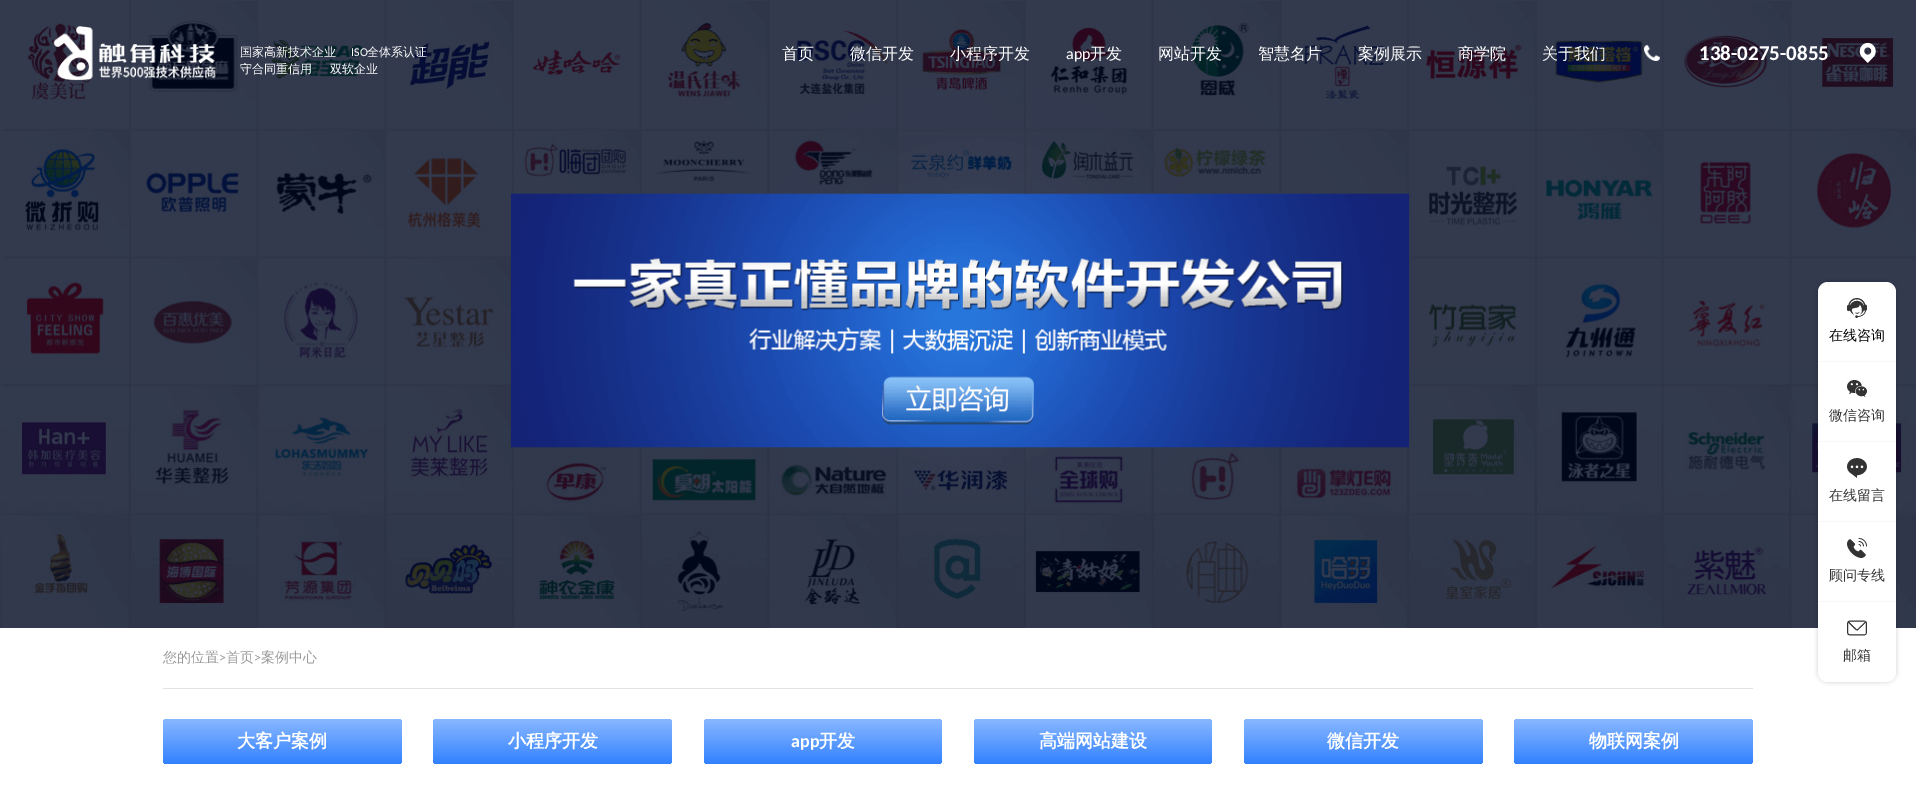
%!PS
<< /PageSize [1916 806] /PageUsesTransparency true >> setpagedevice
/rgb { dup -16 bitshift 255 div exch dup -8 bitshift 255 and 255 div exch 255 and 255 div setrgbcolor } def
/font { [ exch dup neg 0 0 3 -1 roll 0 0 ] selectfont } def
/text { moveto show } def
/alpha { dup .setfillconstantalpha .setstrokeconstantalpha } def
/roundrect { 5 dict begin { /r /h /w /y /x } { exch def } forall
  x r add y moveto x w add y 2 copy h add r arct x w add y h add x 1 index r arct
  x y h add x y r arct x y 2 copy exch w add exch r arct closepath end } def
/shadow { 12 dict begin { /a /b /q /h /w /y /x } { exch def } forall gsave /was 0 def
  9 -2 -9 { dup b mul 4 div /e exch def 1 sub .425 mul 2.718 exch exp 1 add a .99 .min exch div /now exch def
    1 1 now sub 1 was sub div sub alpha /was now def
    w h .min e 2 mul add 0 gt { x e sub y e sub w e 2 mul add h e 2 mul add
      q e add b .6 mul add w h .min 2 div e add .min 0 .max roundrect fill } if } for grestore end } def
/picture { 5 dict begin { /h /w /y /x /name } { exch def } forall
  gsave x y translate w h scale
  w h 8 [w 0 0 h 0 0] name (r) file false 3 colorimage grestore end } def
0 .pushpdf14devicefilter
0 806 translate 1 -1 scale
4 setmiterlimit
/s1 { /WenQuanYiZenHei-Medium 12 font 16#FFFFFF rgb } def
/s2 { /Carlito-Regular 12 font 16#FFFFFF rgb } def
/s3 { /WenQuanYiZenHei-Medium 16 font 16#FFFFFF rgb } def
/s4 { /Carlito-Regular 16 font 16#FFFFFF rgb } def
/s5 { /Carlito-Bold 21 font 16#FFFFFF rgb } def
/s6 { /WenQuanYiZenHei-Medium 14 font 16#000000 rgb } def
/s7 { /WenQuanYiZenHei-Medium 14 font 16#333333 rgb } def
/s8 { /WenQuanYiZenHei-Medium 14 font 16#999999 rgb } def
/s9 { /Carlito-Regular 14 font 16#999999 rgb } def
/s10 { /WenQuanYiZenHei-Bold 18 font 16#FFFFFF rgb } def
/s11 { /Carlito-Bold 18 font 16#FFFFFF rgb } def
16#FFFFFF rgb
0 0 1916 806 rectfill
(pic1.raw) 0 0 1916 628 picture
(pic2.raw) 53 26 163 55 picture
s1
(国家高新技术企业) 240 56 text
s2
(ISO) 351 56 text
s1
(全体系认证) 367 56 text
(守合同重信用) 240 73 text
(双软企业) 330 73 text
s3
(首页) 782 59 text
(微信开发) 850 59 text
(小程序开发) 950 59 text
s4
(app) 1066 59 text
s3
(开发) 1090 59 text
(网站开发) 1158 59 text
(智慧名片) 1258 59 text
(案例展示) 1358 59 text
(商学院) 1458 59 text
(关于我们) 1542 59 text
(pic3.raw) 1644 45 16 16 picture
s5
(138-0275-0855) 1699 60 text
(pic4.raw) 1859 42 17 21 picture
16#000000 rgb
1820 284 74 396 8 3 0.4 shadow
16#FFFFFF rgb
1818 282 78 400 10 roundrect fill
16#F7F7F7 rgb
1818 361 78 1 rectfill
(pic5.raw) 1847 298 20 20 picture
s6
(在线咨询) 1829 340 text
16#F7F7F7 rgb
1818 441 78 1 rectfill
(pic6.raw) 1847 380 20 17 picture
s7
(微信咨询) 1829 420 text
16#F7F7F7 rgb
1818 521 78 1 rectfill
(pic7.raw) 1847 458 20 20 picture
s7
(在线留言) 1829 500 text
16#F7F7F7 rgb
1818 601 78 1 rectfill
(pic8.raw) 1847 538 20 20 picture
s7
(顾问专线) 1829 580 text
(pic9.raw) 1847 620 20 16 picture
(邮箱) 1843 660 text
16#E2E2E2 rgb
163 688 1590 1 rectfill
s8
(您的位置) 163 662 text
s9
(>) 219 662 text
s8
(首页) 226 662 text
s9
(>) 254 662 text
s8
(案例中心) 261 662 text
gsave 163 719 239 45 4 roundrect clip newpath
<< /ShadingType 2 /ColorSpace /DeviceRGB /Coords [283 719 283 764] /Extend [true true] /Function << /FunctionType 2 /Domain [0 1] /C0 [0.537 0.722 1] /C1 [0.196 0.506 1] /N 1 >> >> shfill grestore
s10
(大客户案例) 237 747 text
gsave 433 719 239 45 4 roundrect clip newpath
<< /ShadingType 2 /ColorSpace /DeviceRGB /Coords [553 719 553 764] /Extend [true true] /Function << /FunctionType 2 /Domain [0 1] /C0 [0.537 0.722 1] /C1 [0.196 0.506 1] /N 1 >> >> shfill grestore
(小程序开发) 508 747 text
gsave 704 719 238 45 4 roundrect clip newpath
<< /ShadingType 2 /ColorSpace /DeviceRGB /Coords [823 719 823 764] /Extend [true true] /Function << /FunctionType 2 /Domain [0 1] /C0 [0.537 0.722 1] /C1 [0.196 0.506 1] /N 1 >> >> shfill grestore
s11
(app) 791 747 text
s10
(开发) 819 747 text
gsave 974 719 238 45 4 roundrect clip newpath
<< /ShadingType 2 /ColorSpace /DeviceRGB /Coords [1093 719 1093 764] /Extend [true true] /Function << /FunctionType 2 /Domain [0 1] /C0 [0.537 0.722 1] /C1 [0.196 0.506 1] /N 1 >> >> shfill grestore
(高端网站建设) 1039 747 text
gsave 1244 719 239 45 4 roundrect clip newpath
<< /ShadingType 2 /ColorSpace /DeviceRGB /Coords [1364 719 1364 764] /Extend [true true] /Function << /FunctionType 2 /Domain [0 1] /C0 [0.537 0.722 1] /C1 [0.196 0.506 1] /N 1 >> >> shfill grestore
(微信开发) 1327 747 text
gsave 1514 719 239 45 4 roundrect clip newpath
<< /ShadingType 2 /ColorSpace /DeviceRGB /Coords [1634 719 1634 764] /Extend [true true] /Function << /FunctionType 2 /Domain [0 1] /C0 [0.537 0.722 1] /C1 [0.196 0.506 1] /N 1 >> >> shfill grestore
(物联网案例) 1589 747 text
.poppdf14devicefilter showpage
